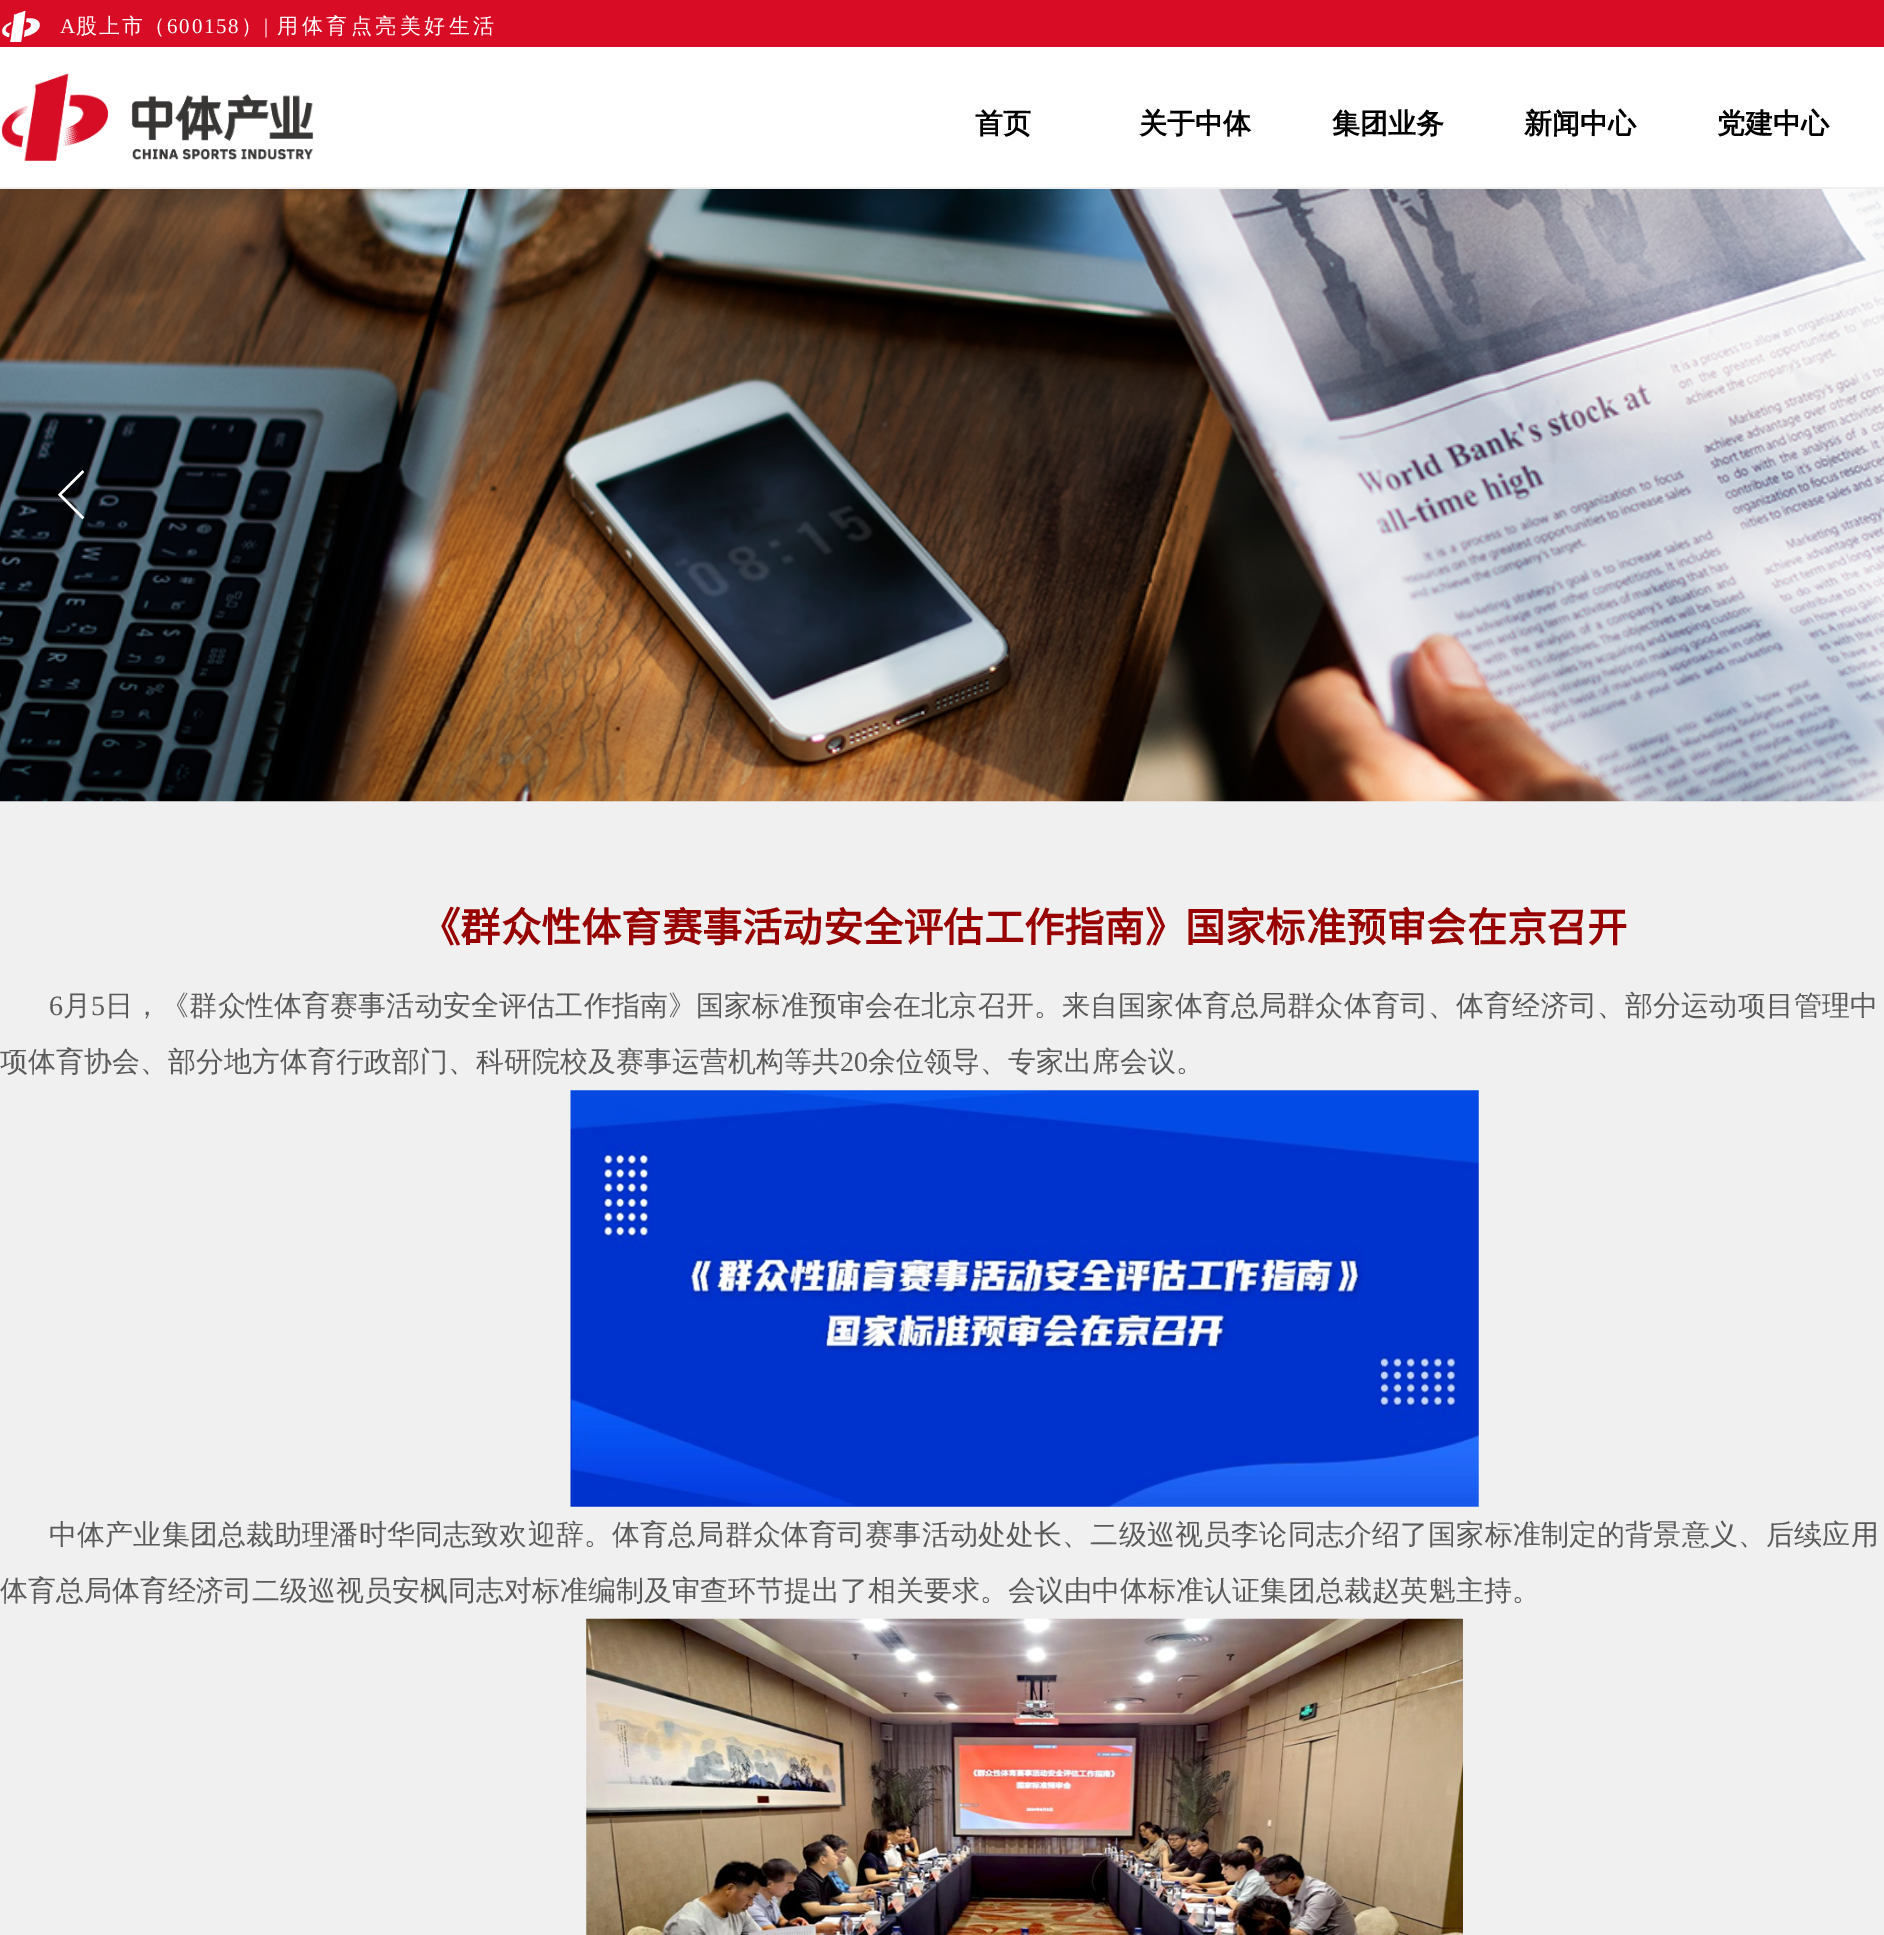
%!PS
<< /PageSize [1884 1935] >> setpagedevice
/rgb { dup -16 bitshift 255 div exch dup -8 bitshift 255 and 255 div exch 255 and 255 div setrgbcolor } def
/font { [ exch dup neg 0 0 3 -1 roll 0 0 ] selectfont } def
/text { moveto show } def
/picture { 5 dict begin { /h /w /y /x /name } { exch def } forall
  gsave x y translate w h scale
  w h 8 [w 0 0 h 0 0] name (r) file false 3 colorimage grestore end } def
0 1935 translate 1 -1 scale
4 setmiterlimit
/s1 { /LiberationSerif-Regular 21 font 16#FFFFFF rgb } def
/s2 { /WenQuanYiZenHei-Bold 28 font 16#000000 rgb } def
/s3 { /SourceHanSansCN-Bold 40.25 font 16#980000 rgb } def
/s4 { /WenQuanYiZenHei-Medium 28 font 16#5A5A5A rgb } def
/s5 { /LiberationSerif-Regular 28 font 16#5A5A5A rgb } def
16#F0F0F0 rgb
0 0 1884 1935 rectfill
16#D80C24 rgb
0 0 1884 47 rectfill
(pic1.raw) 1 10 39 32 picture
/LiberationSerif-Regular 21 font
16#FFFFFF rgb
60 33 moveto 1.75 0 (A) ashow
/WenQuanYiZenHei-Medium 21 font
76 33 moveto 1.75 0 (股上市（) ashow
/LiberationSerif-Regular 21 font
167 33 moveto 1.75 0 (600158) ashow
/WenQuanYiZenHei-Medium 21 font
241 33 moveto 1.75 0 (）) ashow
s1
(|) 264 33 text
/WenQuanYiZenHei-Medium 21 font
277 33 moveto 3.5 0 (用体育点亮美好生活) ashow
0 47 1884 140 rectfill
(pic2.raw) 1 73 313 88 picture
s2
(首页) 975 133 text
(关于中体) 1139 133 text
(集团业务) 1332 133 text
(新闻中心) 1524 133 text
(党建中心) 1717 133 text
(pic3.raw) 0 189 1884 613 picture
(pic4.raw) 58 470 27 50 picture
s3
(《群众性体育赛事活动安全评估工作指南》国家标准预审会在京召开) 420 942 text
/LiberationSerif-Regular 28 font
16#5A5A5A rgb
49 1015 moveto 0.15 0 (6) ashow
/WenQuanYiZenHei-Medium 28 font
63 1015 moveto 0.15 0 (月) ashow
/LiberationSerif-Regular 28 font
91 1015 moveto 0.15 0 (5) ashow
/WenQuanYiZenHei-Medium 28 font
105 1015 moveto 0.15 0 (日，《群众性体育赛事活动安全评估工作指南》国家标准预审会在北京召开。来自国家体育总局群众体育司、体育经济司、部分运动项目管理中) ashow
(项体育协会、部分地方体育行政部门、科研院校及赛事运营机构等共) 0 1071 text
s5
(20) 840 1071 text
s4
(余位领导、专家出席会议。) 868 1071 text
(pic5.raw) 570 1090 909 417 picture
49 1544 moveto 0.15 0 (中体产业集团总裁助理潘时华同志致欢迎辞。体育总局群众体育司赛事活动处处长、二级巡视员李论同志介绍了国家标准制定的背景意义、后续应用) ashow
(体育总局体育经济司二级巡视员安枫同志对标准编制及审查环节提出了相关要求。会议由中体标准认证集团总裁赵英魁主持。) 0 1600 text
(pic6.raw) 586 1618 877 317 picture
showpage
